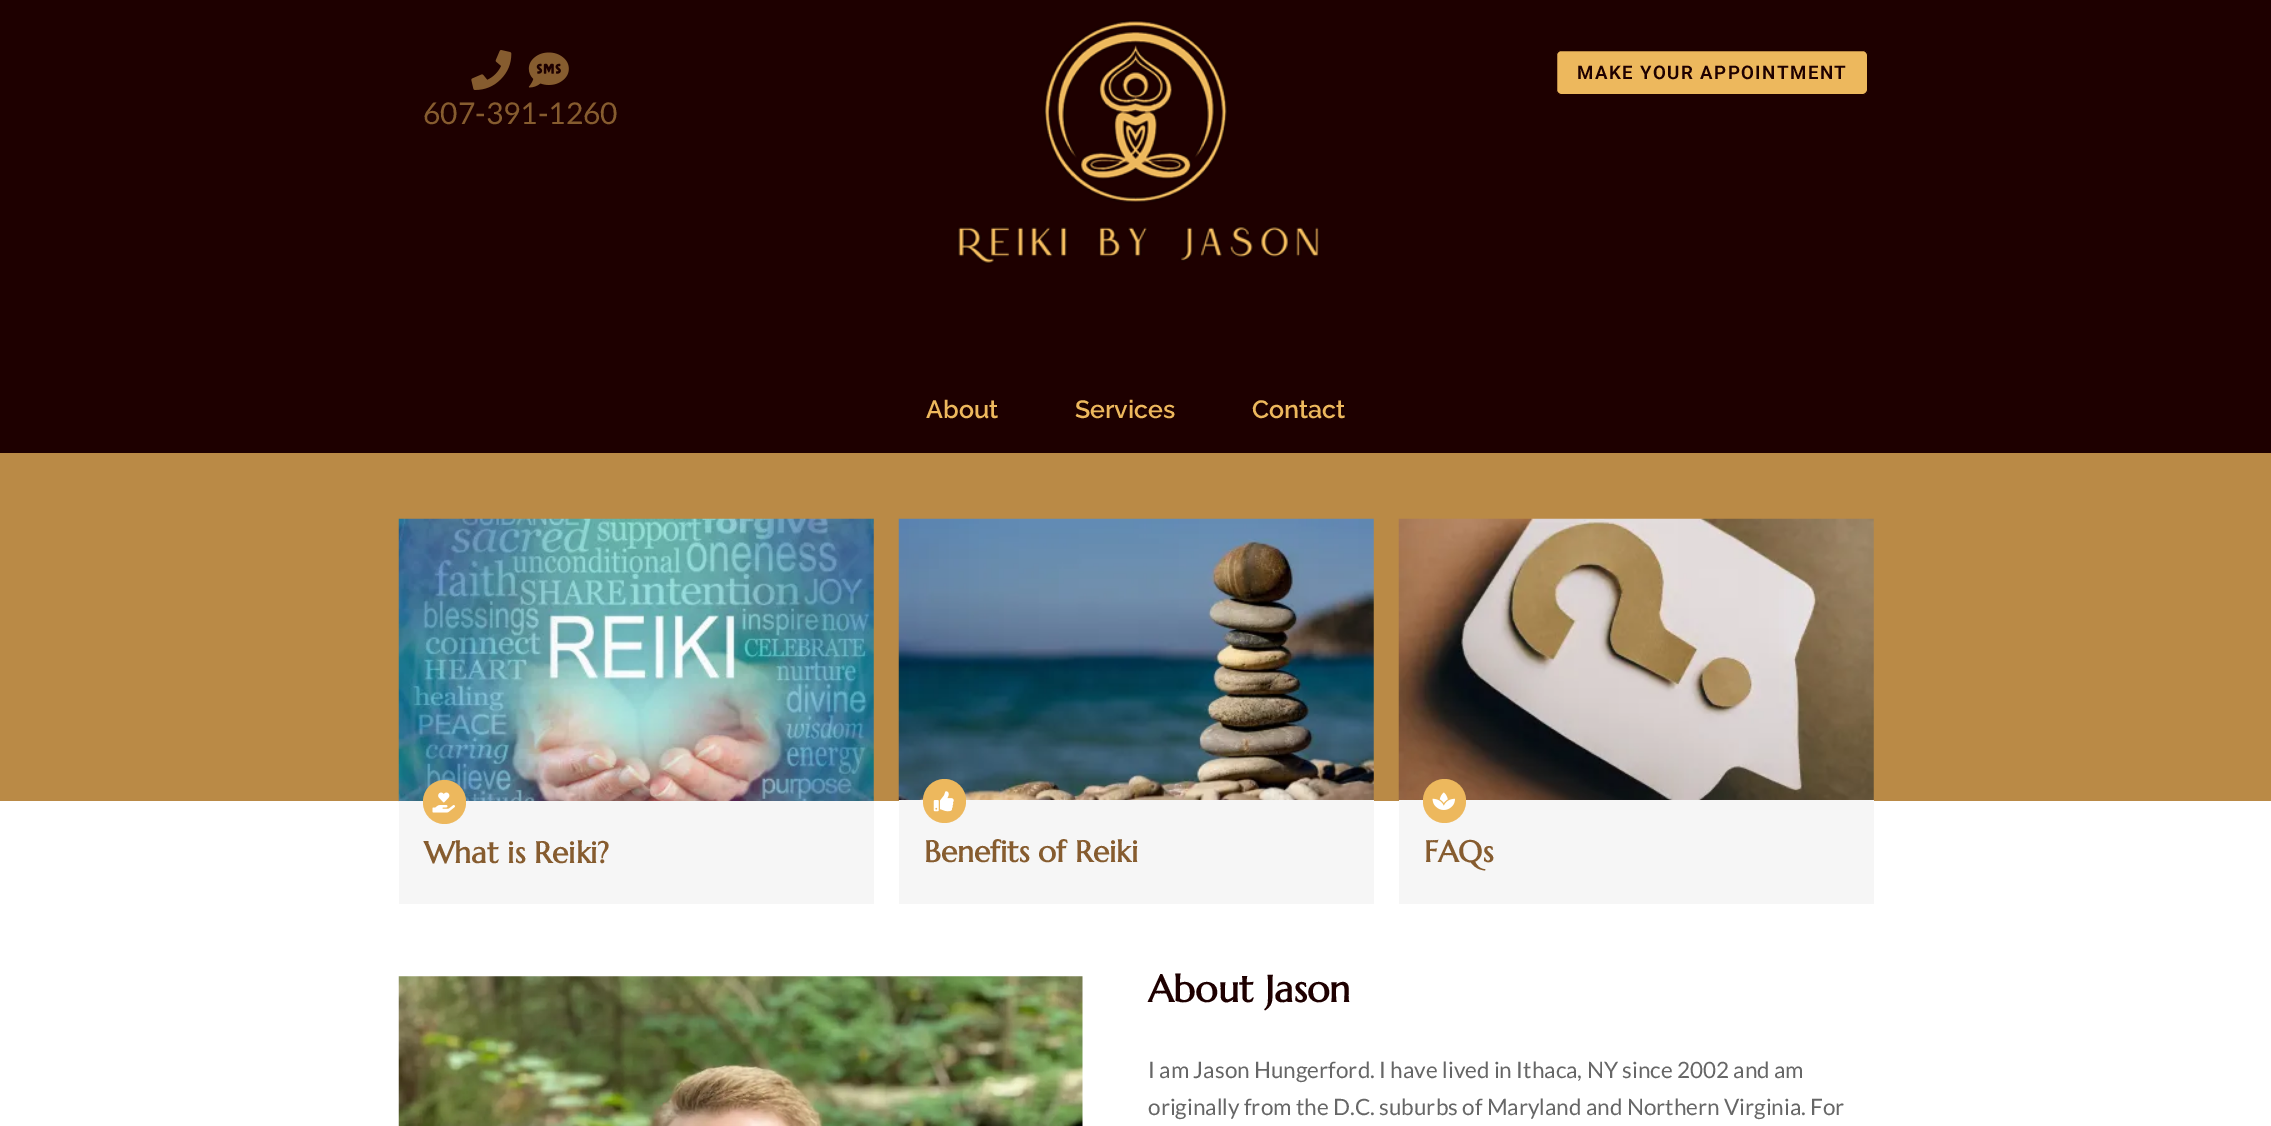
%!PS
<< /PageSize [2271 1126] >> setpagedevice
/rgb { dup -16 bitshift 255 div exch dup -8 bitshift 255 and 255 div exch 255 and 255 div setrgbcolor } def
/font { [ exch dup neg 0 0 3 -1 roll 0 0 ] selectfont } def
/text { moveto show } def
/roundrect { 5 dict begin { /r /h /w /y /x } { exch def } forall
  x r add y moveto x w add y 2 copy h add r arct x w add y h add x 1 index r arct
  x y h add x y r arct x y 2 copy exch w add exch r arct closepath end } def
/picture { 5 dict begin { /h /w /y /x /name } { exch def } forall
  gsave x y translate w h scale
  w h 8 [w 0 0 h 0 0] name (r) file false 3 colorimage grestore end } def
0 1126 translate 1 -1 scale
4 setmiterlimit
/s1 { /Lato-Regular 30 font 16#865C2F rgb } def
/s2 { /Raleway-SemiBold 25 font 16#EDB85D rgb } def
/s3 { /Marcellus-Bold 30 font 16#865C2F rgb } def
/s4 { /Marcellus-Bold 37.5 font 16#1E0000 rgb } def
/s5 { /Lato-Regular 22.5 font 16#666666 rgb } def
16#FFFFFF rgb
0 0 2271 1126 rectfill
16#1E0000 rgb
0 0 2271 453 rectfill
16#EDB85D rgb
1556.5 50.5 311 44 4.5 roundrect gsave fill grestore
16#1E0000 rgb
stroke
/Roboto-SemiBold 18.75 font
1577 79 moveto 1.4 0 (MAKE YOUR APPOINTMENT) ashow
(pic1.raw) 471 50 41 40 picture
(pic2.raw) 528 52 41 36 picture
s1
(607-391-1260) 423 124 text
(pic3.raw) 957 20 363 244 picture
s2
(About) 926 418 text
(Services) 1075 418 text
(Contact) 1252 418 text
16#BA8A46 rgb
0 453 2271 348 rectfill
(pic4.raw) 398 518 476 284 picture
16#F6F6F6 rgb
399 801 475 103 rectfill
16#EDB85D rgb
423 780 43 44 21.5 roundrect fill
(pic5.raw) 432 792 23 21 picture
s3
(What is Reiki?) 424 863 text
(pic6.raw) 898 518 476 282 picture
16#F6F6F6 rgb
899 800 475 104 rectfill
16#EDB85D rgb
923 779 43 44 21.5 roundrect fill
(pic7.raw) 933 791 21 21 picture
s3
(Benefits of Reiki) 924 862 text
(pic8.raw) 1398 518 476 282 picture
16#F6F6F6 rgb
1399 800 475 104 rectfill
16#EDB85D rgb
1423 779 43 44 21.5 roundrect fill
(pic9.raw) 1432 792 23 18 picture
s3
(FAQs) 1424 862 text
(pic10.raw) 398 976 685 150 picture
s4
(About Jason) 1148 1002 text
s5
(I am Jason Hungerford. I have lived in Ithaca, NY since 2002 and am) 1148 1078 text
(originally from the D.C. suburbs of Maryland and Northern Virginia. For) 1148 1115 text
showpage
